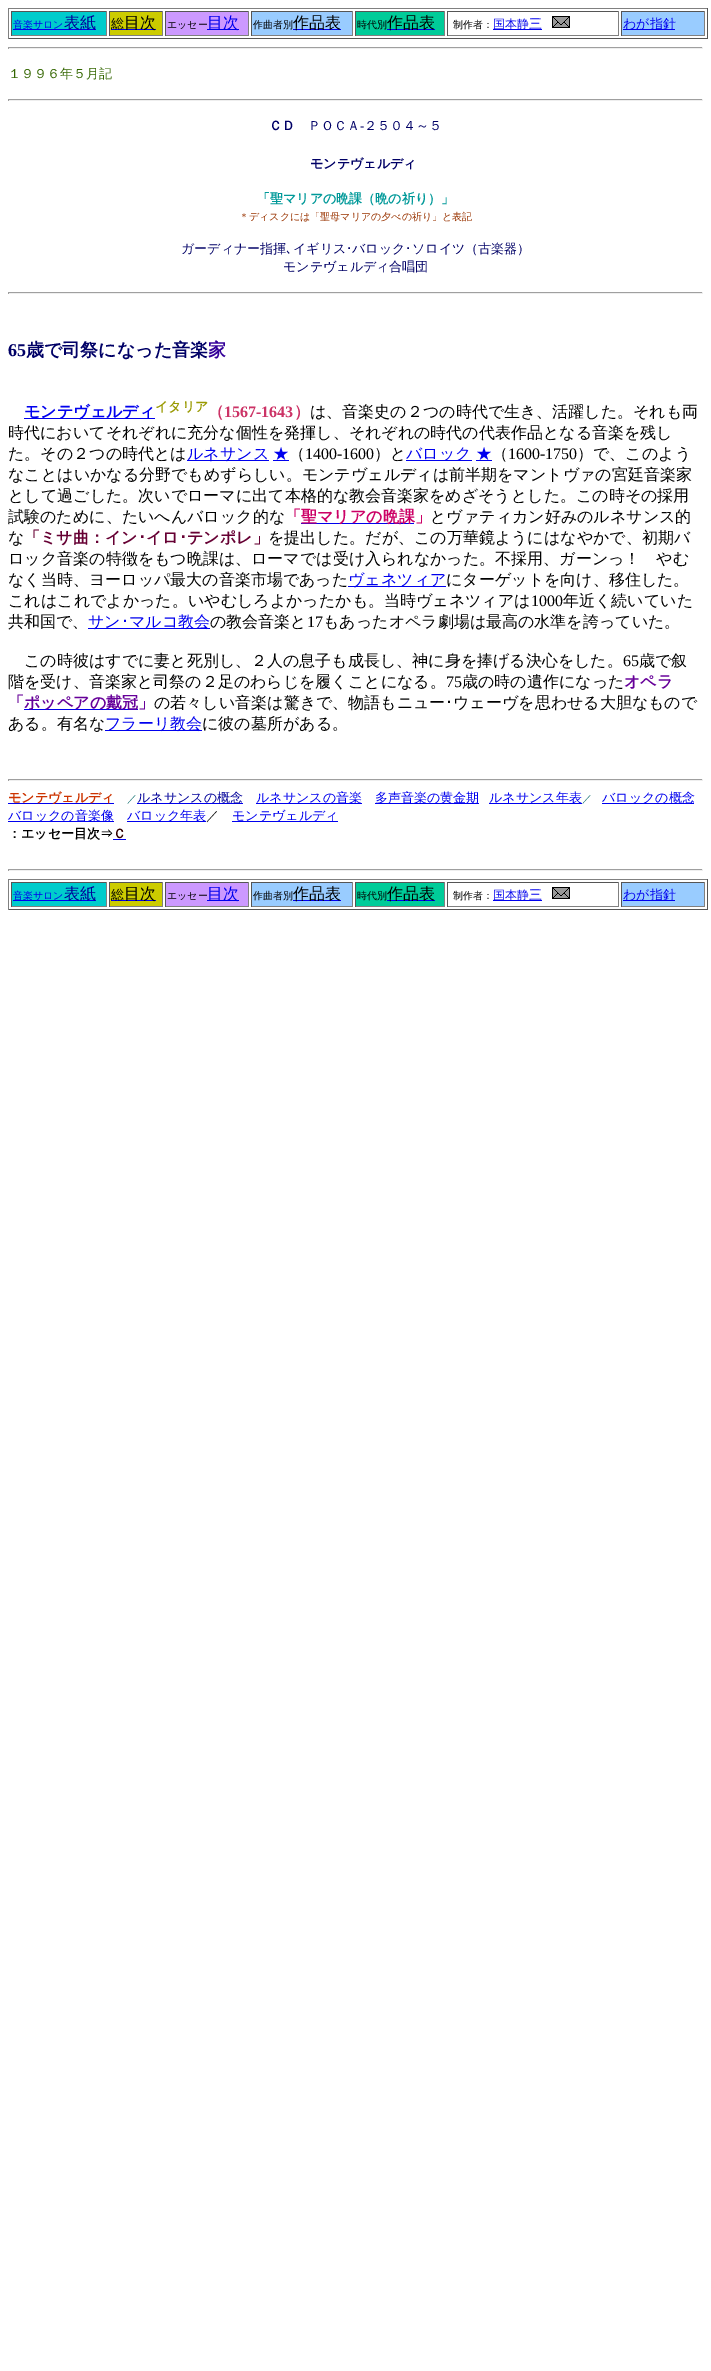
%!PS
<< /PageSize [711 2371] >> setpagedevice
/rgb { dup -16 bitshift 255 div exch dup -8 bitshift 255 and 255 div exch 255 and 255 div setrgbcolor } def
/font { [ exch dup neg 0 0 3 -1 roll 0 0 ] selectfont } def
/text { moveto show } def
/picture { 5 dict begin { /h /w /y /x /name } { exch def } forall
  gsave x y translate w h scale
  w h 8 [w 0 0 h 0 0] name (r) file false 3 colorimage grestore end } def
0 2371 translate 1 -1 scale
4 setmiterlimit
/s1 { /WenQuanYiZenHei-Medium 10 font 16#0000EE rgb } def
/s2 { /WenQuanYiZenHei-Medium 16 font 16#000099 rgb } def
/s3 { /WenQuanYiZenHei-Medium 13 font 16#000000 rgb } def
/s4 { /WenQuanYiZenHei-Medium 16 font 16#000000 rgb } def
/s5 { /WenQuanYiZenHei-Medium 10 font 16#000000 rgb } def
/s6 { /WenQuanYiZenHei-Medium 16 font 16#0000EE rgb } def
/s7 { /WenQuanYiZenHei-Medium 12 font 16#0000EE rgb } def
/s8 { /WenQuanYiZenHei-Medium 13 font 16#0000EE rgb } def
/s9 { /WenQuanYiZenHei-Medium 13 font 16#336600 rgb } def
/s10 { /WenQuanYiZenHei-Bold 13 font 16#000066 rgb } def
/s11 { /WenQuanYiZenHei-Medium 13 font 16#000066 rgb } def
/s12 { /LiberationSerif-Regular 13 font 16#000066 rgb } def
/s13 { /WenQuanYiZenHei-Bold 13 font 16#009999 rgb } def
/s14 { /WenQuanYiZenHei-Medium 10 font 16#993300 rgb } def
/s15 { /IPAGothic-Regular 13 font 16#000066 rgb } def
/s16 { /LiberationSerif-Bold 18 font 16#000066 rgb } def
/s17 { /WenQuanYiZenHei-Bold 18 font 16#000066 rgb } def
/s18 { /WenQuanYiZenHei-Bold 18 font 16#330099 rgb } def
/s19 { /WenQuanYiZenHei-Bold 16 font 16#0000EE rgb } def
/s20 { /WenQuanYiZenHei-Bold 13 font 16#999900 rgb } def
/s21 { /WenQuanYiZenHei-Bold 16 font 16#CC3366 rgb } def
/s22 { /LiberationSerif-Bold 16 font 16#CC3366 rgb } def
/s23 { /LiberationSerif-Regular 16 font 16#000000 rgb } def
/s24 { /WenQuanYiZenHei-Bold 16 font 16#CC0066 rgb } def
/s25 { /WenQuanYiZenHei-Bold 16 font 16#660033 rgb } def
/s26 { /IPAGothic-Bold 16 font 16#660033 rgb } def
/s27 { /IPAGothic-Regular 16 font 16#0000EE rgb } def
/s28 { /WenQuanYiZenHei-Bold 16 font 16#660099 rgb } def
/s29 { /IPAGothic-Regular 16 font 16#000000 rgb } def
/s30 { /WenQuanYiZenHei-Bold 13 font 16#CC3300 rgb } def
/s31 { /WenQuanYiZenHei-Medium 10 font 16#006666 rgb } def
/s32 { /WenQuanYiZenHei-Medium 13 font 16#000099 rgb } def
/s33 { /WenQuanYiZenHei-Bold 13 font 16#000000 rgb } def
/s34 { /WenQuanYiZenHei-Bold 13 font 16#330000 rgb } def
16#FFFFFF rgb
0 0 711 2371 rectfill
16#808080 rgb
8 8 700 1 rectfill
16#555555 rgb
707 8 1 31 rectfill
8 38 700 1 rectfill
16#808080 rgb
8 8 1 31 rectfill
16#00CCCC rgb
12 12 94 23 rectfill
16#555555 rgb
11 11 96 1 rectfill
16#808080 rgb
106 11 1 25 rectfill
11 35 96 1 rectfill
16#555555 rgb
11 11 1 25 rectfill
16#0000EE rgb
13 29 83 1 rectfill
s1
(音楽サロン) 13 28 text
s2
(表紙) 64 28 text
16#CCCC00 rgb
110 12 52 23 rectfill
16#555555 rgb
109 11 54 1 rectfill
16#808080 rgb
162 11 1 25 rectfill
109 35 54 1 rectfill
16#555555 rgb
109 11 1 25 rectfill
16#0000EE rgb
111 29 45 1 rectfill
s3
(総) 111 28 text
s4
(目次) 124 28 text
16#CC99FF rgb
166 12 82 23 rectfill
16#555555 rgb
165 11 84 1 rectfill
16#808080 rgb
248 11 1 25 rectfill
165 35 84 1 rectfill
16#555555 rgb
165 11 1 25 rectfill
s5
(エッセー) 167 28 text
16#0000EE rgb
207 29 32 1 rectfill
s6
(目次) 207 28 text
16#99CCFF rgb
252 12 100 23 rectfill
16#555555 rgb
251 11 102 1 rectfill
16#808080 rgb
352 11 1 25 rectfill
251 35 102 1 rectfill
16#555555 rgb
251 11 1 25 rectfill
s5
(作曲者別) 253 28 text
16#0000EE rgb
293 29 48 1 rectfill
s4
(作品表) 293 28 text
16#00CC99 rgb
356 12 88 23 rectfill
16#555555 rgb
355 11 90 1 rectfill
16#808080 rgb
444 11 1 25 rectfill
355 35 90 1 rectfill
16#555555 rgb
355 11 1 25 rectfill
s5
(時代別) 357 28 text
16#0000EE rgb
387 29 48 1 rectfill
s4
(作品表) 387 28 text
16#555555 rgb
447 11 172 1 rectfill
16#808080 rgb
618 11 1 25 rectfill
447 35 172 1 rectfill
16#555555 rgb
447 11 1 25 rectfill
s5
(制作者：) 453 28 text
16#0000EE rgb
493 29 49 1 rectfill
s7
(国本静) 493 28 text
s8
(三) 529 28 text
(pic1.raw) 552 16 18 12 picture
16#99CCFF rgb
622 12 82 23 rectfill
16#555555 rgb
621 11 84 1 rectfill
16#808080 rgb
704 11 1 25 rectfill
621 35 84 1 rectfill
16#555555 rgb
621 11 1 25 rectfill
16#0000EE rgb
623 29 52 1 rectfill
(わが指針) 623 28 text
16#9F9F9F rgb
8 47 695 1 rectfill
16#EEEEEE rgb
702 47 1 2 rectfill
8 48 695 1 rectfill
16#9F9F9F rgb
8 47 1 2 rectfill
s9
(１９９６年５月記) 8 78 text
16#9F9F9F rgb
8 99 695 1 rectfill
16#EEEEEE rgb
702 99 1 2 rectfill
8 100 695 1 rectfill
16#9F9F9F rgb
8 99 1 2 rectfill
s10
(ＣＤ) 269 130 text
s11
(ＰＯＣＡ) 308 130 text
s12
(-) 360 130 text
s11
(２５０４～５) 364 130 text
s10
(モンテヴェルディ) 310 168 text
s13
(「聖マリアの晩課（晩の祈り）」) 257 203 text
s14
(＊ディスクには「聖母マリアの夕べの祈り」と表記) 239 220 text
s11
(ガーディナー指揮) 181 253 text
(イギリス) 293 253 text
s15
(･) 346 253 text
s11
(バロック) 352 253 text
s15
(･) 405 253 text
s11
(ソロイツ（古楽器）) 412 253 text
s15
(､) 286 253 text
s11
(モンテヴェルディ合唱団) 283 271 text
16#9F9F9F rgb
8 292 695 1 rectfill
16#EEEEEE rgb
702 292 1 2 rectfill
8 293 695 1 rectfill
16#9F9F9F rgb
8 292 1 2 rectfill
s16
(65) 8 356 text
s17
(歳で司祭になった音楽) 26 356 text
s18
(家) 208 356 text
16#0000EE rgb
24 418 131 1 rectfill
s19
(モンテヴェルディ) 24 417 text
s20
(イタリア) 155 411 text
s21
(（) 208 417 text
s22
(1567-1643) 224 417 text
s21
(）) 294 417 text
s4
(は、音楽史の２つの時代で生き、活躍した。それも両) 310 417 text
(時代においてそれぞれに充分な個性を発揮し、それぞれの時代の代表作品となる音楽を残し) 8 438 text
(た。その２つの時代とは) 8 459 text
16#0000EE rgb
187 460 82 1 rectfill
(ルネサンス) 187 459 text
273 460 16 1 rectfill
(★) 273 459 text
s4
(（) 289 459 text
s23
(1400-1600) 305 459 text
s4
(）と) 374 459 text
16#0000EE rgb
406 460 66 1 rectfill
(バロック) 406 459 text
476 460 16 1 rectfill
(★) 476 459 text
s4
(（) 492 459 text
s23
(1600-1750) 508 459 text
s4
(）で、このよう) 577 459 text
(なことはいかなる分野でもめずらしい。モンテヴェルディは前半期をマントヴァの宮廷音楽家) 8 480 text
(として過ごした。次いでローマに出て本格的な教会音楽家をめざそうとした。この時その採用) 8 501 text
(試験のために、たいへんバロック的な) 8 522 text
s24
(「) 285 522 text
16#0000EE rgb
301 523 113 1 rectfill
s24
(聖マリアの晩課」) 301 522 text
s4
(とヴァティカン好みのルネサンス的) 430 522 text
(な) 8 543 text
s25
(「ミサ曲：イン) 24 543 text
s26
(･) 138 543 text
s25
(イロ) 146 543 text
s26
(･) 179 543 text
s25
(テンポレ」) 187 543 text
s4
(を提出した。だが、この万華鏡ようにはなやかで、初期バ) 268 543 text
(ロック音楽の特徴をもつ晩課は、ローマでは受け入られなかった。不採用、ガーンっ！　やむ) 8 564 text
(なく当時、ヨーロッパ最大の音楽市場であった) 8 585 text
16#0000EE rgb
348 586 98 1 rectfill
(ヴェネツィア) 348 585 text
s4
(にターゲットを向け、移住した。) 446 585 text
(これはこれでよかった。いやむしろよかったかも。当時ヴェネツィアは) 8 606 text
s23
(1000) 531 606 text
s4
(年近く続いていた) 563 606 text
(共和国で、) 8 627 text
16#0000EE rgb
88 628 122 1 rectfill
(サン) 88 627 text
s27
(･) 121 627 text
s6
(マルコ教会) 129 627 text
s4
(の教会音楽と) 210 627 text
s23
(17) 307 627 text
s4
(もあったオペラ劇場は最高の水準を誇っていた。) 323 627 text
(この時彼はすでに妻と死別し、２人の息子も成長し、神に身を捧げる決心をした。) 24 666 text
s23
(65) 623 666 text
s4
(歳で叙) 639 666 text
(階を受け、音楽家と司祭の２足のわらじを履くことになる。) 8 687 text
s23
(75) 446 687 text
s4
(歳の時の遺作になった) 462 687 text
s28
(オペラ) 624 687 text
(「) 8 708 text
16#0000EE rgb
24 709 114 1 rectfill
s28
(ポッペアの戴冠」) 24 708 text
s4
(の若々しい音楽は驚きで、物語もニュー) 154 708 text
s29
(･) 445 708 text
s4
(ウェーヴを思わせる大胆なもので) 453 708 text
(ある。有名な) 8 729 text
16#0000EE rgb
105 730 97 1 rectfill
(フラーリ教会) 105 729 text
s4
(に彼の墓所がある。) 202 729 text
16#9F9F9F rgb
8 779 695 1 rectfill
16#EEEEEE rgb
702 779 1 2 rectfill
8 780 695 1 rectfill
16#9F9F9F rgb
8 779 1 2 rectfill
16#0000EE rgb
8 803 106 1 rectfill
s30
(モンテヴェルディ) 8 802 text
s31
(／) 127 802 text
16#0000EE rgb
137 803 106 1 rectfill
s32
(ルネサンスの概念) 137 802 text
16#0000EE rgb
256 803 106 1 rectfill
(ルネサンスの音楽) 256 802 text
375 803 104 1 rectfill
(多声音楽の黄金期) 375 802 text
489 803 93 1 rectfill
(ルネサンス年表) 489 802 text
s31
(／) 582 802 text
16#0000EE rgb
602 803 92 1 rectfill
s8
(バロックの概念) 602 802 text
8 821 106 1 rectfill
(バロックの音楽像) 8 820 text
127 821 79 1 rectfill
(バロック年表) 127 820 text
s3
(／) 206 820 text
16#0000EE rgb
232 821 106 1 rectfill
(モンテヴェルディ) 232 820 text
s33
(：エッセー目次⇒) 8 838 text
s34
(Ｃ) 113 838 text
16#0000EE rgb
113 839 13 1 rectfill
16#9F9F9F rgb
8 869 695 1 rectfill
16#EEEEEE rgb
702 869 1 2 rectfill
8 870 695 1 rectfill
16#9F9F9F rgb
8 869 1 2 rectfill
16#808080 rgb
8 879 700 1 rectfill
16#555555 rgb
707 879 1 31 rectfill
8 909 700 1 rectfill
16#808080 rgb
8 879 1 31 rectfill
16#00CCCC rgb
12 883 94 23 rectfill
16#555555 rgb
11 882 96 1 rectfill
16#808080 rgb
106 882 1 25 rectfill
11 906 96 1 rectfill
16#555555 rgb
11 882 1 25 rectfill
16#0000EE rgb
13 900 83 1 rectfill
s1
(音楽サロン) 13 899 text
s2
(表紙) 64 899 text
16#CCCC00 rgb
110 883 52 23 rectfill
16#555555 rgb
109 882 54 1 rectfill
16#808080 rgb
162 882 1 25 rectfill
109 906 54 1 rectfill
16#555555 rgb
109 882 1 25 rectfill
16#0000EE rgb
111 900 45 1 rectfill
s3
(総) 111 899 text
s4
(目次) 124 899 text
16#CC99FF rgb
166 883 82 23 rectfill
16#555555 rgb
165 882 84 1 rectfill
16#808080 rgb
248 882 1 25 rectfill
165 906 84 1 rectfill
16#555555 rgb
165 882 1 25 rectfill
s5
(エッセー) 167 899 text
16#0000EE rgb
207 900 32 1 rectfill
s6
(目次) 207 899 text
16#99CCFF rgb
252 883 100 23 rectfill
16#555555 rgb
251 882 102 1 rectfill
16#808080 rgb
352 882 1 25 rectfill
251 906 102 1 rectfill
16#555555 rgb
251 882 1 25 rectfill
s5
(作曲者別) 253 899 text
16#0000EE rgb
293 900 48 1 rectfill
s4
(作品表) 293 899 text
16#00CC99 rgb
356 883 88 23 rectfill
16#555555 rgb
355 882 90 1 rectfill
16#808080 rgb
444 882 1 25 rectfill
355 906 90 1 rectfill
16#555555 rgb
355 882 1 25 rectfill
s5
(時代別) 357 899 text
16#0000EE rgb
387 900 48 1 rectfill
s4
(作品表) 387 899 text
16#555555 rgb
447 882 172 1 rectfill
16#808080 rgb
618 882 1 25 rectfill
447 906 172 1 rectfill
16#555555 rgb
447 882 1 25 rectfill
s5
(制作者：) 453 899 text
16#0000EE rgb
493 900 49 1 rectfill
s7
(国本静) 493 899 text
s8
(三) 529 899 text
(pic1.raw) 552 887 18 12 picture
16#99CCFF rgb
622 883 82 23 rectfill
16#555555 rgb
621 882 84 1 rectfill
16#808080 rgb
704 882 1 25 rectfill
621 906 84 1 rectfill
16#555555 rgb
621 882 1 25 rectfill
16#0000EE rgb
623 900 52 1 rectfill
(わが指針) 623 899 text
showpage
